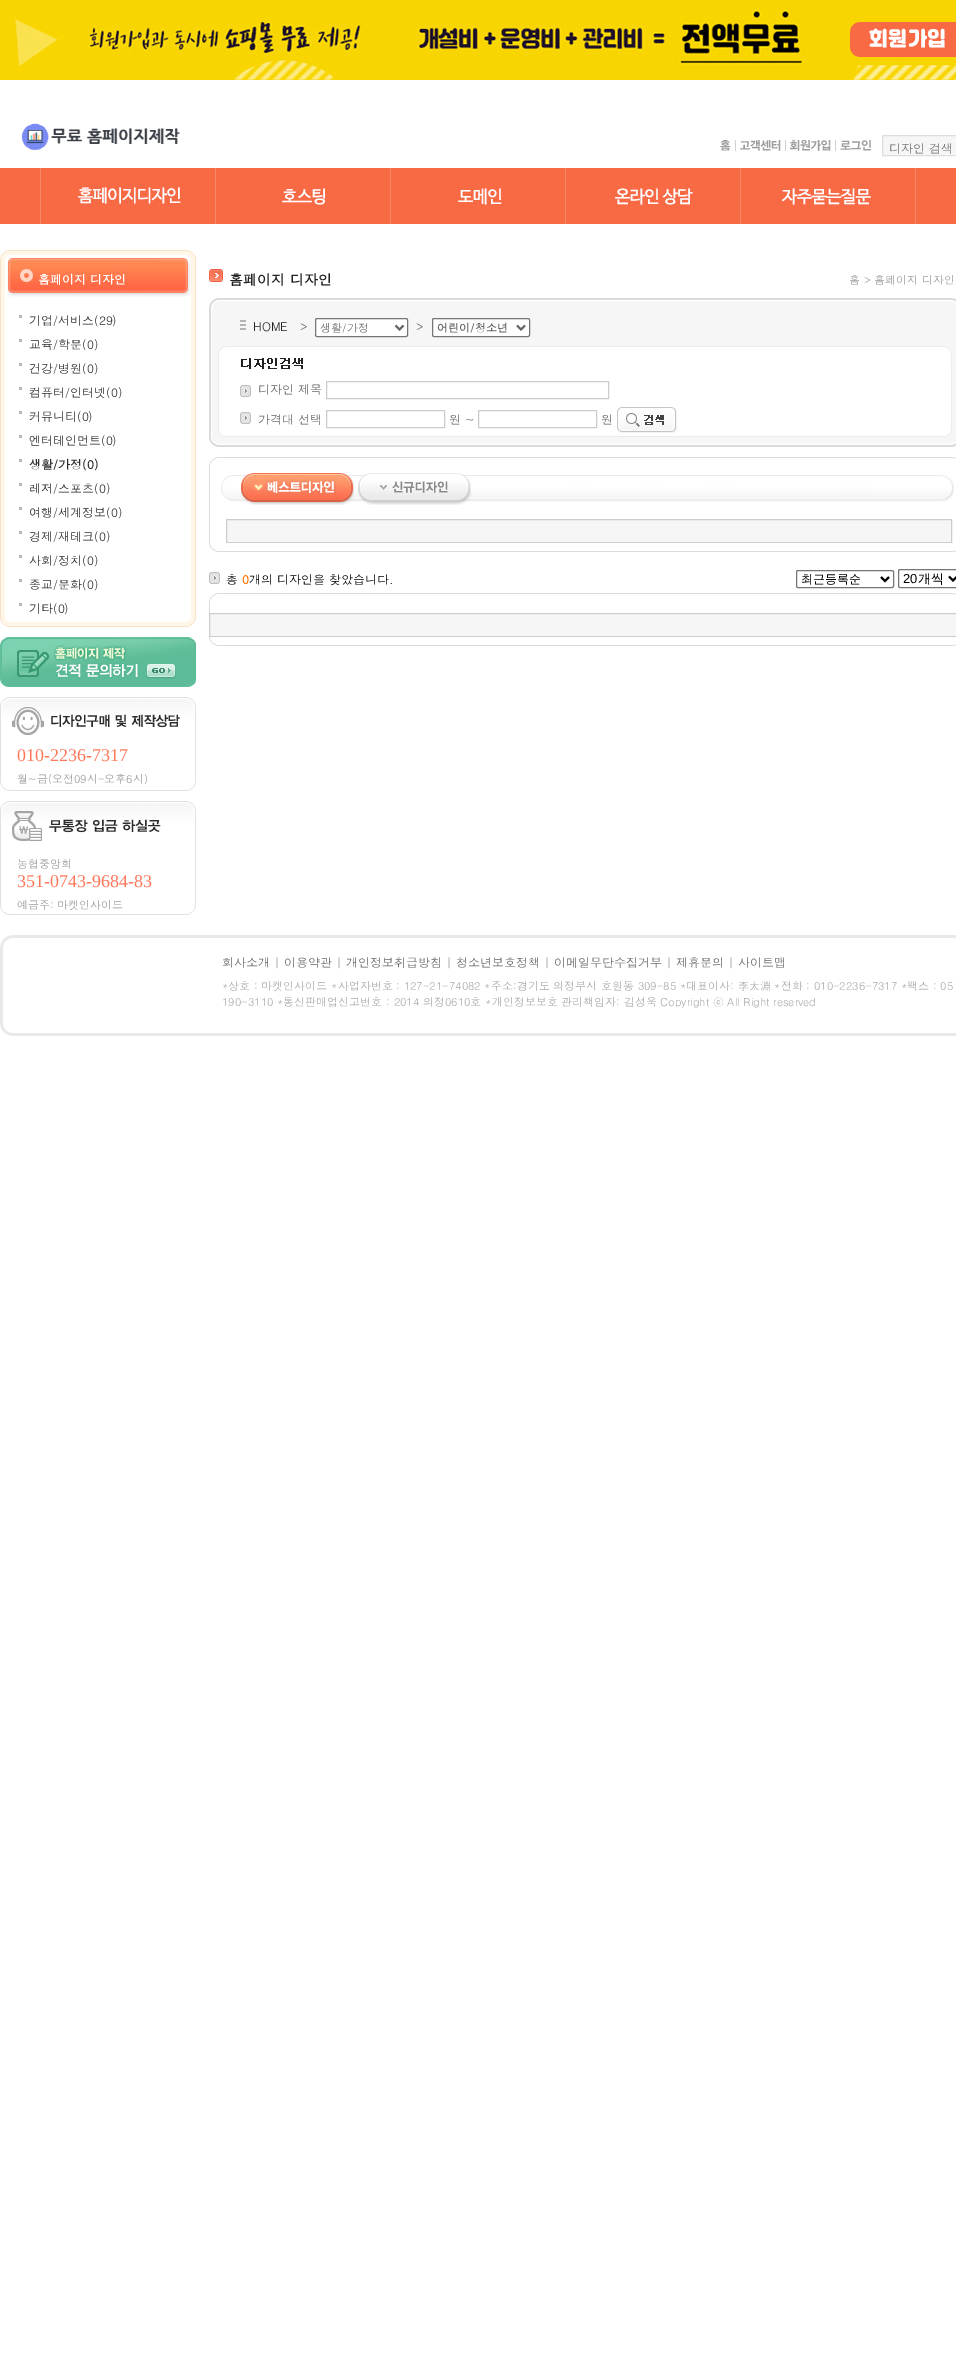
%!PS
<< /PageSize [956 2368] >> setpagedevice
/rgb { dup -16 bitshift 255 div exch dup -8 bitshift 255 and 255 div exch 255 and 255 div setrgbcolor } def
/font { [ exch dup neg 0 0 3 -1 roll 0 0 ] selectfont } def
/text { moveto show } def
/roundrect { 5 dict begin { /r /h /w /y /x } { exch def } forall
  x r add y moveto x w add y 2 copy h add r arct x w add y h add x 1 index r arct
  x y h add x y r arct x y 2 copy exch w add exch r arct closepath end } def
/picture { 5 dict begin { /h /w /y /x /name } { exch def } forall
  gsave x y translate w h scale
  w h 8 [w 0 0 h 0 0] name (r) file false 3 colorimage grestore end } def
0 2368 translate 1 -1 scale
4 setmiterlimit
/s1 { /Dotum-Regular 12 font 16#6E6E6E rgb } def
/s2 { /Dotum-Bold 12 font 16#FFFFFF rgb } def
/s3 { /Dotum-Regular 12 font 16#2C2C2C rgb } def
/s4 { /Dotum-Bold 12 font 16#2C2C2C rgb } def
/s5 { /LiberationSerif-Regular 18 font 16#FF7759 rgb } def
/s6 { /Dotum-Regular 11 font 16#999999 rgb } def
/s7 { /Dotum-Bold 14 font 16#222222 rgb } def
/s8 { /Dotum-Regular 12 font 16#222222 rgb } def
/s9 { /Dotum-Regular 12 font 16#666666 rgb } def
/s10 { /Dotum-Regular 11 font 16#666666 rgb } def
/s11 { /Dotum-Bold 11 font 16#666666 rgb } def
/s12 { /Dotum-Regular 12 font 16#000000 rgb } def
/s13 { /Dotum-Bold 12 font 16#FF7200 rgb } def
/s14 { /WenQuanYiZenHei-Medium 12 font 16#000000 rgb } def
/s15 { /LiberationSans-Regular 13 font 16#000000 rgb } def
/s16 { /WenQuanYiZenHei-Medium 13 font 16#000000 rgb } def
/s17 { /Dotum-Regular 11 font 16#A9A9A9 rgb } def
16#FFFFFF rgb
0 0 956 2368 rectfill
(pic1.raw) 0 0 956 80 picture
(pic2.raw) 850 22 106 35 picture
(pic3.raw) 21 123 159 27 picture
(pic4.raw) 720 140 11 11 picture
16#D1D1D1 rgb
735 140 1 11 rectfill
(pic5.raw) 740 140 41 11 picture
785 140 1 11 rectfill
(pic6.raw) 790 140 41 11 picture
835 140 1 11 rectfill
(pic7.raw) 840 140 31 11 picture
16#F6F6F6 rgb
882.5 135.5 moveto 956.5 135.5 lineto 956.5 155.5 lineto 882.5 155.5 lineto closepath gsave fill grestore
16#DEDEDE rgb
stroke
s1
(디자인 검색) 889 153 text
16#F86A43 rgb
0 168 956 56 rectfill
(pic8.raw) 40 168 141 56 picture
(pic9.raw) 215 168 110 56 picture
(pic10.raw) 390 168 112 56 picture
(pic11.raw) 565 168 128 56 picture
(pic12.raw) 740 168 131 56 picture
16#F98869 rgb
915 168 1 56 rectfill
(pic13.raw) 0 250 196 47 picture
s2
(홈페이지 디자인) 38 284 text
(pic14.raw) 0 297 196 321 picture
16#B8B8B8 rgb
19 315 3 3 rectfill
s3
(기업/서비스\(29\)) 29 325 text
16#B8B8B8 rgb
19 339 3 3 rectfill
s3
(교육/학문\(0\)) 29 349 text
16#B8B8B8 rgb
19 363 3 3 rectfill
s3
(건강/병원\(0\)) 29 373 text
16#B8B8B8 rgb
19 387 3 3 rectfill
s3
(컴퓨터/인터넷\(0\)) 29 397 text
16#B8B8B8 rgb
19 411 3 3 rectfill
s3
(커뮤니티\(0\)) 29 421 text
16#B8B8B8 rgb
19 435 3 3 rectfill
s3
(엔터테인먼트\(0\)) 29 445 text
16#B8B8B8 rgb
19 459 3 3 rectfill
s4
(생활/가정\(0\)) 29 469 text
16#B8B8B8 rgb
19 483 3 3 rectfill
s3
(레저/스포츠\(0\)) 29 493 text
16#B8B8B8 rgb
19 507 3 3 rectfill
s3
(여행/세계정보\(0\)) 29 517 text
16#B8B8B8 rgb
19 531 3 3 rectfill
s3
(경제/재테크\(0\)) 29 541 text
16#B8B8B8 rgb
19 555 3 3 rectfill
s3
(사회/정치\(0\)) 29 565 text
16#B8B8B8 rgb
19 579 3 3 rectfill
s3
(종교/문화\(0\)) 29 589 text
16#B8B8B8 rgb
19 603 3 3 rectfill
s3
(기타\(0\)) 29 613 text
(pic15.raw) 0 618 196 9 picture
(pic16.raw) 0 637 196 50 picture
(pic17.raw) 0 697 196 94 picture
s5
(010-2236-7317) 17 761 text
s6
(월~금\(오전09시-오후6시\)) 17 783 text
(pic18.raw) 0 801 196 114 picture
(농협중앙회) 17 868 text
s5
(351-0743-9684-83) 17 887 text
s6
(예금주: 마켓인사이드) 17 909 text
(pic19.raw) 209 269 14 13 picture
s7
(홈페이지 디자인) 229 285 text
s6
(홈 > 홈페이지 디자인) 849 284 text
(pic20.raw) 209 298 747 149 picture
s8
(HOME) 253 331 text
s9
(>) 300 331 text
16#FFFFFF rgb
315.5 318.5 92 18 1.5 roundrect gsave fill grestore
16#767676 rgb
stroke
16#666666 rgb
2 setlinewidth
395.5 325.5 moveto 399.5 329.5 lineto 403.5 325.5 lineto stroke
s10
(생활/가정) 320 332 text
s9
(>) 416 331 text
16#FFFFFF rgb
432.5 318.5 97 18 1.5 roundrect gsave fill grestore
16#767676 rgb
1 setlinewidth
stroke
16#666666 rgb
2 setlinewidth
517 325.5 moveto 521 329.5 lineto 525 325.5 lineto stroke
s11
(어린이/청소년) 437 332 text
(pic21.raw) 240 385 11 12 picture
s9
(디자인 제목) 258 394 text
16#CCCCCC rgb
1 setlinewidth
326.5 381.5 282 17 rectstroke
(pic21.raw) 240 412 11 12 picture
s9
(가격대 선택) 258 424 text
16#CCCCCC rgb
326.5 410.5 118 17 rectstroke
s9
(원 ~) 449 424 text
16#CCCCCC rgb
478.5 410.5 118 17 rectstroke
s9
(원) 601 424 text
(pic22.raw) 617 407 60 26 picture
(pic23.raw) 209 457 747 9 picture
16#DADADA rgb
209 466 1 77 rectfill
(pic24.raw) 221 475 733 27 picture
(pic25.raw) 241 473 113 32 picture
(pic26.raw) 358 473 113 32 picture
16#F6F6F6 rgb
226.5 519.5 moveto 951.5 519.5 lineto 951.5 542.5 lineto 226.5 542.5 lineto closepath gsave fill grestore
16#CDCDCD rgb
stroke
(pic27.raw) 209 543 747 9 picture
(pic21.raw) 209 572 11 12 picture
s12
(총) 226 584 text
s13
(0) 242 584 text
s12
(개의 디자인을 찾았습니다.) 249 584 text
16#767676 rgb
796.5 570.5 97 17 1.5 roundrect stroke
16#000000 rgb
2 setlinewidth
881 577 moveto 885 581 lineto 889 577 lineto stroke
s14
(최근등록순) 801 583 text
16#767676 rgb
1 setlinewidth
898.5 569.5 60 18 1.5 roundrect stroke
16#000000 rgb
2 setlinewidth
949 576.5 moveto 953 580.5 lineto 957 576.5 lineto stroke
s15
(20) 903 583 text
s16
(개씩) 918 583 text
(pic23.raw) 209 593 747 9 picture
16#DADADA rgb
209 602 1 11 rectfill
16#F6F6F6 rgb
209.5 613.5 moveto 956.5 613.5 lineto 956.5 636.5 lineto 209.5 636.5 lineto closepath gsave fill grestore
16#CDCDCD rgb
1 setlinewidth
stroke
(pic27.raw) 209 637 747 9 picture
(pic28.raw) 0 935 956 101 picture
s9
(회사소개 | 이용약관 | 개인정보취급방침 | 청소년보호정책 | 이메일무단수집거부 | 제휴문의 | 사이트맵) 222 967 text
s17
(*상호 : 마켓인사이드 *사업자번호 : 127-21-74082 *주소:경기도 의정부시 호원동 309-85 *대표이사: 李太淵 *전화 : 010-2236-7317 *팩스 : 05) 222 990 text
(190-3110 *통신판매업신고번호 : 2014 의정0610호 *개인정보보호 관리책임자: 김성욱 Copyright ⓒ All Right reserved) 222 1006 text
showpage
